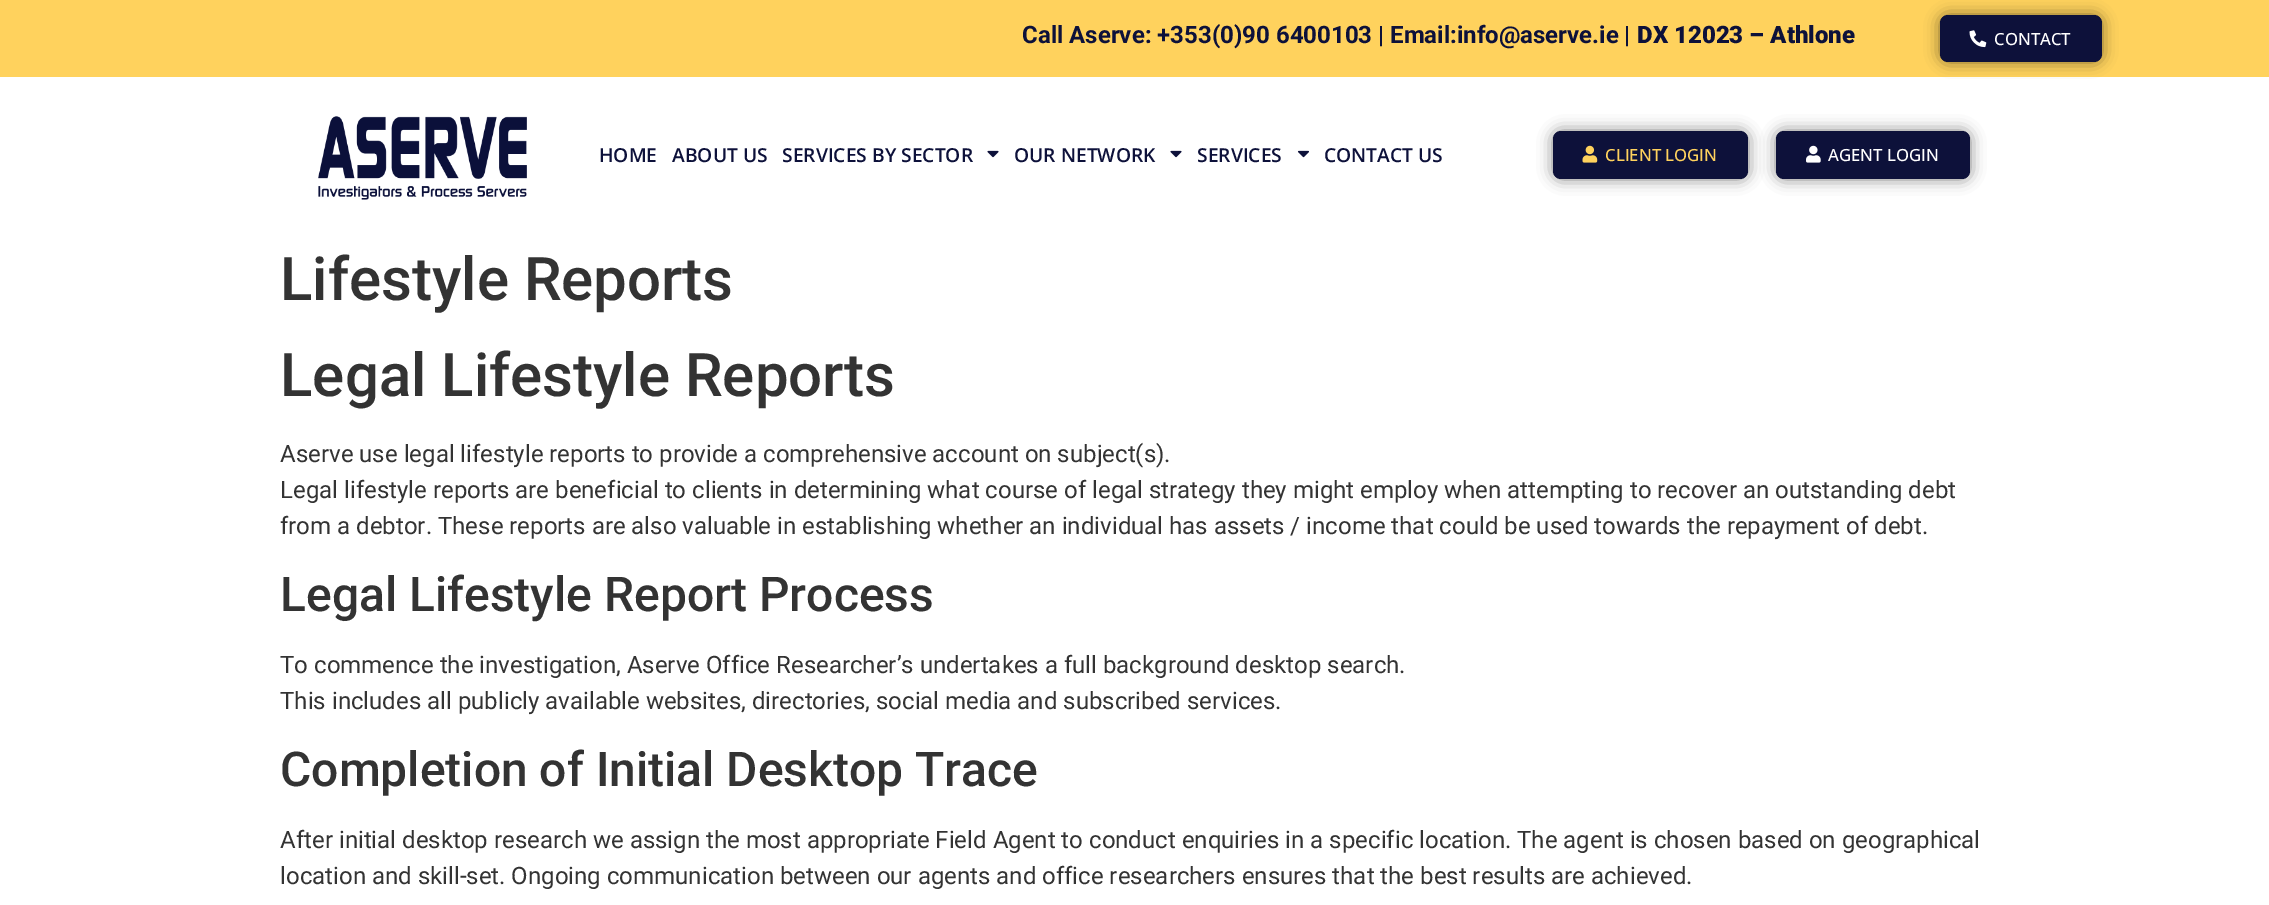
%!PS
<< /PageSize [2269 905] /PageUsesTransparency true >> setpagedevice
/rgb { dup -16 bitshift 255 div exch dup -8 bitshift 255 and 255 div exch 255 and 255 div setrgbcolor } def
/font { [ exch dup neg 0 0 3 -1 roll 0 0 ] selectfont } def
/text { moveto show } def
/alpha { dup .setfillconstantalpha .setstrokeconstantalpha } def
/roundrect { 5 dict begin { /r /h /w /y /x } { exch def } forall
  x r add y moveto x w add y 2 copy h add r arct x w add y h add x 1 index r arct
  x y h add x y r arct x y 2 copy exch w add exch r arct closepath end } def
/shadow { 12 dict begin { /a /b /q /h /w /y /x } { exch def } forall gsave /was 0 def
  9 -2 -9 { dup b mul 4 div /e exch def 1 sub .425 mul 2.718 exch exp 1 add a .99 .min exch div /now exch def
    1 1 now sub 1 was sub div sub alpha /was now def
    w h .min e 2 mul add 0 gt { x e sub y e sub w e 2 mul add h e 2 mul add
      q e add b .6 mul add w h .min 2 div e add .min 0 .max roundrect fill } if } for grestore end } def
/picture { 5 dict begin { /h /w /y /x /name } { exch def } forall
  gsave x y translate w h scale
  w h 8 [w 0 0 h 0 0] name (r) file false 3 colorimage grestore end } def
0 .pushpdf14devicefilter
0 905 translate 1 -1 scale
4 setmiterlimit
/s1 { /Roboto-Bold 24 font 16#0D113A rgb } def
/s2 { /Roboto-Black 24 font 16#0D113A rgb } def
/s3 { /OpenSans-Medium 16.75 font 16#FFFFFF rgb } def
/s4 { /OpenSans-SemiBold 19.25 font 16#0D113A rgb } def
/s5 { /OpenSans-Medium 16.75 font 16#FFD25D rgb } def
/s6 { /Roboto-Medium 60 font 16#333333 rgb } def
/s7 { /Roboto-Regular 24 font 16#333333 rgb } def
/s8 { /Roboto-Medium 48 font 16#333333 rgb } def
16#FFFFFF rgb
0 0 2269 905 rectfill
16#FFD25D rgb
0 0 2269 77 rectfill
s1
(Call Aserve: +353\(0\)90 6400103 | Email:info@aserve.ie |) 1022 43 text
s2
(DX 12023 – Athlone) 1637 43 text
16#000000 rgb
1940 15 162 47 8 7.5 0.5 shadow
16#0D113A rgb
1940 15 162 47 8 roundrect fill
(pic1.raw) 1969 30 18 18 picture
s3
(CONTACT) 1994 45 text
(pic2.raw) 318 116 209 84 picture
s4
(HOME) 599 162 text
(ABOUT US) 672 162 text
(SERVICES BY SECTOR) 782 162 text
(pic3.raw) 987 150 12 8 picture
(OUR NETWORK) 1014 162 text
(pic3.raw) 1170 150 12 8 picture
(SERVICES) 1197 162 text
(pic4.raw) 1297 150 12 8 picture
(CONTACT US) 1324 162 text
16#000000 rgb
1553 131 195 48 8 7.5 0.5 shadow
16#0D113A rgb
1553 131 195 48 8 roundrect fill
(pic5.raw) 1582 145 16 18 picture
s5
(CLIENT LOGIN) 1605 161 text
16#000000 rgb
1776 131 194 48 8 7.5 0.5 shadow
16#0D113A rgb
1776 131 194 48 8 roundrect fill
(pic6.raw) 1806 145 15 18 picture
s3
(AGENT LOGIN) 1828 161 text
s6
(Lifestyle Reports) 280 300 text
(Legal Lifestyle Reports) 280 396 text
s7
(Aserve use legal lifestyle reports to provide a comprehensive account on subject\(s\).) 280 462 text
(Legal lifestyle reports are beneficial to clients in determining what course of legal strategy they might employ when attempting to recover an outstanding debt) 280 498 text
(from a debtor. These reports are also valuable in establishing whether an individual has assets / income that could be used towards the repayment of debt.) 280 534 text
s8
(Legal Lifestyle Report Process) 280 611 text
s7
(To commence the investigation, Aserve Office Researcher’s undertakes a full background desktop search.) 280 673 text
(This includes all publicly available websites, directories, social media and subscribed services.) 280 709 text
s8
(Completion of Initial Desktop Trace) 280 786 text
s7
(After initial desktop research we assign the most appropriate Field Agent to conduct enquiries in a specific location. The agent is chosen based on geographical) 280 848 text
(location and skill-set. Ongoing communication between our agents and office researchers ensures that the best results are achieved.) 280 884 text
.poppdf14devicefilter showpage
